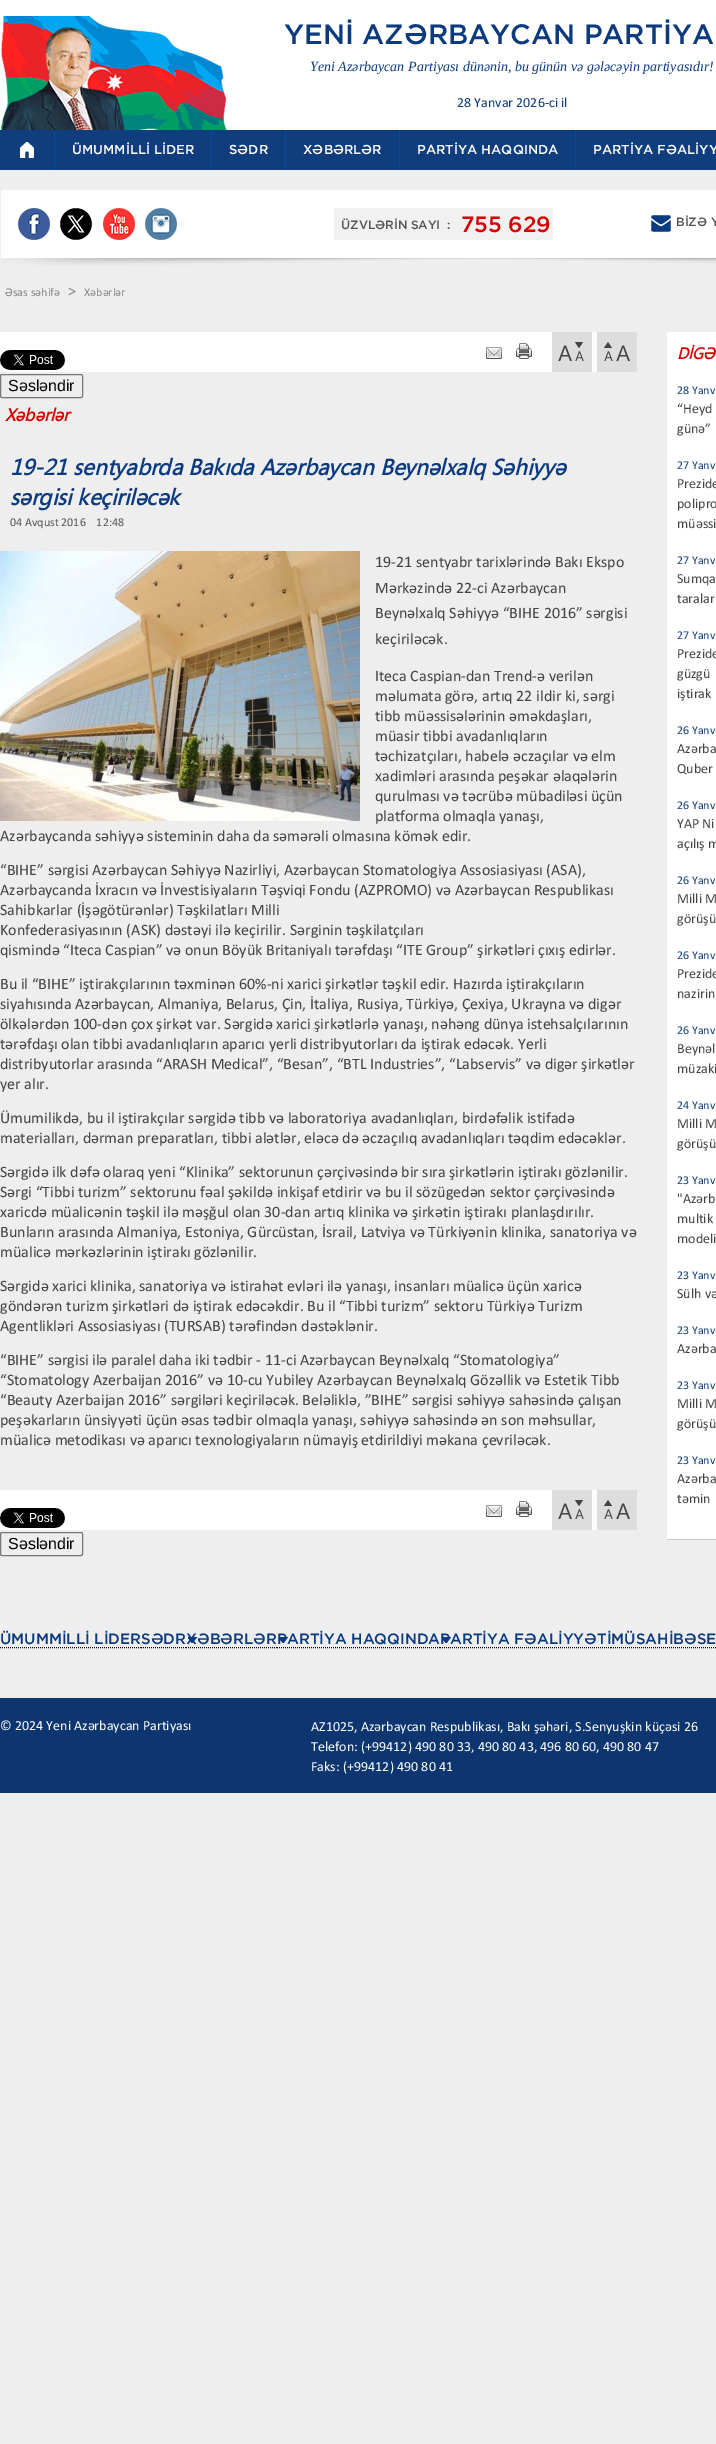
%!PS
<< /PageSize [716 2444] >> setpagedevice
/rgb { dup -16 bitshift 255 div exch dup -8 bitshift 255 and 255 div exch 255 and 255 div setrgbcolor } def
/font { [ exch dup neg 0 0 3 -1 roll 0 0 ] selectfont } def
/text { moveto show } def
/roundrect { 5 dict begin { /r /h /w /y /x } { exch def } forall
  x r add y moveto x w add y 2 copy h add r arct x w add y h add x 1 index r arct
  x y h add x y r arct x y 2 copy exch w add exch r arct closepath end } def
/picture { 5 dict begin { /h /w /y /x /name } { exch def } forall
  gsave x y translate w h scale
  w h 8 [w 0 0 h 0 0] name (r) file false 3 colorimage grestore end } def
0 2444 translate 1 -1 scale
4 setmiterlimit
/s1 { /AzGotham-Medium 28 font 16#0B3A7F rgb } def
/s2 { /LiberationSerif-Italic 14 font 16#0B3A7F rgb } def
/s3 { /Calibri-Regular 14 font 16#0B3A7F rgb } def
/s4 { /AzGotham-Medium 13 font 16#FFFFFF rgb } def
/s5 { /AzGotham-Medium 12 font 16#555555 rgb } def
/s6 { /AzGotham-Medium 22 font 16#D80000 rgb } def
/s7 { /Calibri-Regular 12 font 16#858585 rgb } def
/s8 { /Calibri-Regular 16 font 16#858585 rgb } def
/s9 { /LiberationSans-Regular 16 font 16#000000 rgb } def
/s10 { /SegoeUI-BoldItalic 17.5 font 16#D80000 rgb } def
/s11 { /SegoeUI-BoldItalic 22.4 font 16#0B3A7F rgb } def
/s12 { /Calibri-Regular 12 font 16#555555 rgb } def
/s13 { /Calibri-Regular 16 font 16#444444 rgb } def
/s14 { /SegoeUI-BoldItalic 16 font 16#D80000 rgb } def
/s15 { /Calibri-Regular 12 font 16#133F79 rgb } def
/s16 { /Calibri-Regular 14 font 16#444444 rgb } def
/s17 { /AzGotham-Medium 15 font 16#0B3A7F rgb } def
/s18 { /Calibri-Regular 14 font 16#FFFFFF rgb } def
16#EEEEEE rgb
0 0 716 2444 rectfill
16#FFFFFF rgb
0 0 716 130 rectfill
(pic1.raw) 0 16 227 114 picture
s1
(YENİ AZƏRBAYCAN PARTİYA) 284 44 text
s2
(Yeni Azərbaycan Partiyası dünənin, bu günün və gələcəyin partiyasıdır!) 310 71 text
s3
(28 Yanvar 2026-ci il) 457 107 text
16#103D7D rgb
0 130 716 40 rectfill
16#0C489E rgb
54 130 1 40 rectfill
(pic2.raw) 20 142 14 16 picture
211 130 1 38 rectfill
s4
(ÜMUMMİLLİ LİDER) 72 154 text
16#0C489E rgb
285 130 1 38 rectfill
s4
(SƏDR) 229 154 text
16#0C489E rgb
399 130 1 38 rectfill
s4
(XƏBƏRLƏR) 303 154 text
16#0C489E rgb
575 130 1 38 rectfill
s4
(PARTİYA HAQQINDA) 417 154 text
(PARTİYA FƏALİYY) 593 154 text
(pic3.raw) 1 190 715 76 picture
(pic4.raw) 18 208 32 32 picture
(pic5.raw) 60 208 32 32 picture
(pic6.raw) 103 208 32 32 picture
(pic7.raw) 145 208 32 32 picture
s5
(ÜZVLƏRİN SAYI  :) 341 229 text
s6
(755 629) 461 232 text
(pic8.raw) 651 215 20 17 picture
s5
(BİZƏ Y) 676 226 text
s7
(Əsas səhifə) 5 296 text
s8
(>) 68 296 text
s7
(Xəbərlər) 84 296 text
16#FFFFFF rgb
0 332 597 40 rectfill
(pic9.raw) 0 350 65 20 picture
(pic10.raw) 486 347 16 12 picture
(pic11.raw) 516 343 16 16 picture
(pic12.raw) 552 332 40 40 picture
(pic13.raw) 597 332 40 40 picture
16#767676 rgb
0.5 374.5 82 23 1.5 roundrect stroke
s9
(Səsləndir) 8 391 text
s10
(Xəbərlər) 5 421 text
s11
(19-21 sentyabrda Bakıda Azərbaycan Beynəlxalq Səhiyyə) 10 475 text
(sərgisi keçiriləcək) 10 505 text
s12
(04 Avqust 2016    12:48) 10 526 text
(pic14.raw) 0 551 360 270 picture
s13
(19-21 sentyabr tarixlərində Bakı Ekspo) 375 567 text
(Mərkəzində 22-ci Azərbaycan) 375 593 text
(Beynəlxalq Səhiyyə “BIHE 2016” sərgisi) 375 618 text
(keçiriləcək.) 375 644 text
(Iteca Caspian-dan Trend-ə verilən) 375 681 text
(məlumata görə, artıq 22 ildir ki, sərgi) 375 701 text
(tibb müəssisələrinin əməkdaşları,) 375 721 text
(müasir tibbi avadanlıqların) 375 741 text
(təchizatçıları, habelə əczaçılar və elm) 375 761 text
(xadimləri arasında peşəkar əlaqələrin) 375 781 text
(qurulması və təcrübə mübadiləsi üçün) 375 801 text
(platforma olmaqla yanaşı,) 375 821 text
(Azərbaycanda səhiyyə sisteminin daha da səmərəli olmasına kömək edir.) 0 841 text
(“BIHE” sərgisi Azərbaycan Səhiyyə Nazirliyi, Azərbaycan Stomatologiya Assosiasiyası \(ASA\),) 0 875 text
(Azərbaycanda İxracın və İnvestisiyaların Təşviqi Fondu \(AZPROMO\) və Azərbaycan Respublikası) 0 895 text
(Sahibkarlar \(İşəgötürənlər\) Təşkilatları Milli) 0 915 text
(Konfederasiyasının \(ASK\) dəstəyi ilə keçirilir. Sərginin təşkilatçıları) 0 935 text
(qismində “Iteca Caspian” və onun Böyük Britaniyalı tərəfdaşı “ITE Group” şirkətləri çıxış edirlər.) 0 955 text
(Bu il “BIHE” iştirakçılarının təxminən 60%-ni xarici şirkətlər təşkil edir. Hazırda iştirakçıların) 0 989 text
(siyahısında Azərbaycan, Almaniya, Belarus, Çin, İtaliya, Rusiya, Türkiyə, Çexiya, Ukrayna və digər) 0 1009 text
(ölkələrdən 100-dən çox şirkət var. Sərgidə xarici şirkətlərlə yanaşı, nəhəng dünya istehsalçılarının) 0 1029 text
(tərəfdaşı olan tibbi avadanlıqların aparıcı yerli distribyutorları da iştirak edəcək. Yerli) 0 1049 text
(distribyutorlar arasında “ARASH Medical”, “Besan”, “BTL Industries”, “Labservis” və digər şirkətlər) 0 1069 text
(yer alır.) 0 1089 text
(Ümumilikdə, bu il iştirakçılar sərgidə tibb və laboratoriya avadanlıqları, birdəfəlik istifadə) 0 1123 text
(materialları, dərman preparatları, tibbi alətlər, eləcə də əczaçılıq avadanlıqları təqdim edəcəklər.) 0 1143 text
(Sərgidə ilk dəfə olaraq yeni “Klinika” sektorunun çərçivəsində bir sıra şirkətlərin iştirakı gözlənilir.) 0 1177 text
(Sərgi “Tibbi turizm” sektorunu fəal şəkildə inkişaf etdirir və bu il sözügedən sektor çərçivəsində) 0 1197 text
(xaricdə müalicənin təşkil ilə məşğul olan 30-dan artıq klinika və şirkətin iştirakı planlaşdırılır.) 0 1217 text
(Bunların arasında Almaniya, Estoniya, Gürcüstan, İsrail, Latviya və Türkiyənin klinika, sanatoriya və) 0 1237 text
(müalicə mərkəzlərinin iştirakı gözlənilir.) 0 1257 text
(Sərgidə xarici klinika, sanatoriya və istirahət evləri ilə yanaşı, insanları müalicə üçün xaricə) 0 1291 text
(göndərən turizm şirkətləri də iştirak edəcəkdir. Bu il “Tibbi turizm” sektoru Türkiyə Turizm) 0 1311 text
(Agentlikləri Assosiasiyası \(TURSAB\) tərəfindən dəstəklənir.) 0 1331 text
(“BIHE” sərgisi ilə paralel daha iki tədbir - 11-ci Azərbaycan Beynəlxalq “Stomatologiya”) 0 1365 text
(“Stomatology Azerbaijan 2016” və 10-cu Yubiley Azərbaycan Beynəlxalq Gözəllik və Estetik Tibb) 0 1385 text
(“Beauty Azerbaijan 2016” sərgiləri keçiriləcək. Beləliklə, ”BIHE” sərgisi səhiyyə sahəsində çalışan) 0 1405 text
(peşəkarların ünsiyyəti üçün əsas tədbir olmaqla yanaşı, səhiyyə sahəsində ən son məhsullar,) 0 1425 text
(müalicə metodikası və aparıcı texnologiyaların nümayiş etdirildiyi məkana çevriləcək.) 0 1445 text
16#FFFFFF rgb
0 1490 597 40 rectfill
(pic9.raw) 0 1508 65 20 picture
(pic10.raw) 486 1505 16 12 picture
(pic11.raw) 516 1501 16 16 picture
(pic12.raw) 552 1490 40 40 picture
(pic13.raw) 597 1490 40 40 picture
16#767676 rgb
0.5 1532.5 82 23 1.5 roundrect stroke
s9
(Səsləndir) 8 1549 text
16#FFFFFF rgb
667 332 49 1207 rectfill
16#CCCCCC rgb
667 1539 49 1 rectfill
s14
(DİGƏ) 677 359 text
s15
(28 Yanv) 677 394 text
s16
(“Heyd) 677 413 text
(günə”) 677 433 text
s15
(27 Yanv) 677 469 text
s16
(Prezide) 677 488 text
(polipro) 677 508 text
(müəssi) 677 528 text
s15
(27 Yanv) 677 564 text
s16
(Sumqa) 677 583 text
(taralar) 677 603 text
s15
(27 Yanv) 677 639 text
s16
(Prezide) 677 658 text
(güzgü) 677 678 text
(iştirak) 677 698 text
s15
(26 Yanv) 677 734 text
s16
(Azərba) 677 753 text
(Quber) 677 773 text
s15
(26 Yanv) 677 809 text
s16
(YAP Ni) 677 828 text
(açılış m) 677 848 text
s15
(26 Yanv) 677 884 text
s16
(Milli M) 677 903 text
(görüşü) 677 923 text
s15
(26 Yanv) 677 959 text
s16
(Prezide) 677 978 text
(nazirin) 677 998 text
s15
(26 Yanv) 677 1034 text
s16
(Beynəl) 677 1053 text
(müzaki) 677 1073 text
s15
(24 Yanv) 677 1109 text
s16
(Milli M) 677 1128 text
(görüşü) 677 1148 text
s15
(23 Yanv) 677 1184 text
s16
("Azərb) 677 1203 text
(multik) 677 1223 text
(modeli) 677 1243 text
s15
(23 Yanv) 677 1279 text
s16
(Sülh və) 677 1298 text
s15
(23 Yanv) 677 1334 text
s16
(Azərba) 677 1353 text
s15
(23 Yanv) 677 1389 text
s16
(Milli M) 677 1408 text
(görüşü) 677 1428 text
s15
(23 Yanv) 677 1464 text
s16
(Azərba) 677 1483 text
(təmin) 677 1503 text
16#000000 rgb
[1 1] 0 setdash
0 1647.5 moveto 141 1647.5 lineto stroke
s17
(ÜMUMMİLLİ LİDERSƏDR) 0 1644 text
(pic15.raw) 187 1637 10 6 picture
16#000000 rgb
186 1647.5 moveto 277 1647.5 lineto stroke
s17
(XƏBƏRLƏR) 186 1644 text
(pic15.raw) 278 1637 10 6 picture
16#000000 rgb
277 1647.5 moveto 440 1647.5 lineto stroke
s17
(PARTİYA HAQQINDA) 277 1644 text
(pic15.raw) 441 1637 10 6 picture
16#000000 rgb
440 1647.5 moveto 611 1647.5 lineto stroke
s17
(PARTİYA FƏALİYYƏTİMÜSAHİBƏSE) 440 1644 text
16#000000 rgb
141 1647.5 moveto 186 1647.5 lineto stroke
611 1647.5 moveto 697 1647.5 lineto stroke
697 1647.5 moveto 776 1647.5 lineto stroke
16#0D3670 rgb
0 1698 716 95 rectfill
s18
(© 2024 Yeni Azərbaycan Partiyası) 0 1730 text
(AZ1025, Azərbaycan Respublikası, Bakı şəhəri, S.Senyuşkin küçəsi 26) 311 1731 text
(Telefon: \(+99412\) 490 80 33, 490 80 43, 496 80 60, 490 80 47) 311 1751 text
(Faks: \(+99412\) 490 80 41) 311 1771 text
showpage
